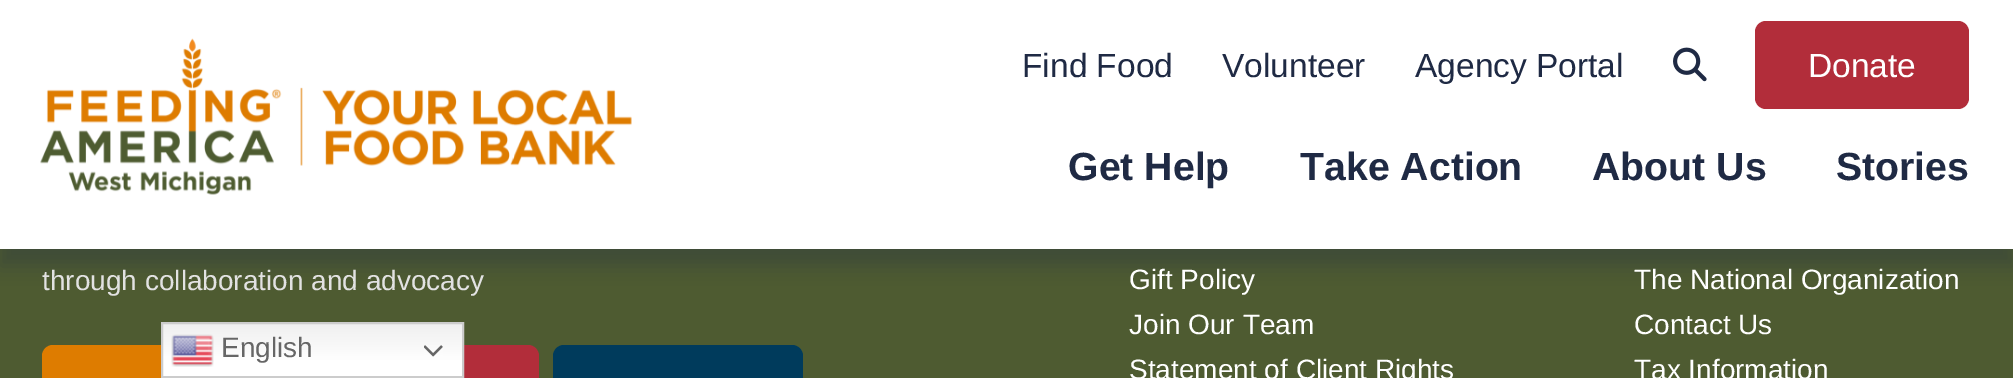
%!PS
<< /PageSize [2013 378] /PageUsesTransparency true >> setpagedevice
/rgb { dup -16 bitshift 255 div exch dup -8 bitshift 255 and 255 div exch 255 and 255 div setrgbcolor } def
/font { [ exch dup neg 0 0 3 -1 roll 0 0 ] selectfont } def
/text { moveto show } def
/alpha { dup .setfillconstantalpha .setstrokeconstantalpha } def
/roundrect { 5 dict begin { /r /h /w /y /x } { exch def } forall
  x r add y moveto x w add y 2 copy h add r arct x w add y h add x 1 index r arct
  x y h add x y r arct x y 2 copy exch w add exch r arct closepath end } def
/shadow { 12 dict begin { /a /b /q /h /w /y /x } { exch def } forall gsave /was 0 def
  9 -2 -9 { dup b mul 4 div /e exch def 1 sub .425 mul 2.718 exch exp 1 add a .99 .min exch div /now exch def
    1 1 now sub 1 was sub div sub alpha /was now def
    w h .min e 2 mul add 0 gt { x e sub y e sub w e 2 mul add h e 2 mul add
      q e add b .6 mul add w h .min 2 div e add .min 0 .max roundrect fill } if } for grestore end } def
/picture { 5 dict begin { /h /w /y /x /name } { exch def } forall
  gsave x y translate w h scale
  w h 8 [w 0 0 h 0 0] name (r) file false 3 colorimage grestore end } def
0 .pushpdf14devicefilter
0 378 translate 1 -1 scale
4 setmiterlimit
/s1 { /LiberationSans-Regular 33.5 font 16#1F2A44 rgb } def
/s2 { /LiberationSans-Regular 33.5 font 16#FFFFFF rgb } def
/s3 { /LiberationSans-Bold 39.25 font 16#1F2A44 rgb } def
/s4 { /LiberationSans-Regular 28 font 16#E2E2E2 rgb } def
/s5 { /LiberationSans-Regular 28 font 16#FFFFFF rgb } def
/s6 { /LiberationSans-Regular 28 font 16#666666 rgb } def
16#4E5B31 rgb
0 0 2013 378 rectfill
16#1F2A44 rgb
0 18 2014 248 0 9 0.33 shadow
16#FFFFFF rgb
0 0 2013 249 rectfill
(pic1.raw) 40 38 592 157 picture
s1
(Find Food) 1022 77 text
(Volunteer) 1222 77 text
(Agency Portal) 1415 77 text
(pic2.raw) 1673 47 34 35 picture
16#B22D3A rgb
1755 21 214 88 11 roundrect fill
s2
(Donate) 1808 77 text
s3
(Get Help) 1068 180 text
(Take Action) 1300 180 text
(About Us) 1592 180 text
(Stories) 1836 180 text
s4
(through collaboration and advocacy) 42 290 text
16#DE7C00 rgb
42 345 256 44 11 roundrect fill
16#B22D3A rgb
312 345 227 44 11 roundrect fill
16#003B5C rgb
553 345 250 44 11 roundrect fill
s5
(Gift Policy) 1129 289 text
(Join Our Team) 1129 334 text
(Statement of Client Rights) 1129 379 text
(The National Organization) 1634 289 text
(Contact Us) 1634 334 text
(Tax Information) 1634 379 text
gsave 163 324 moveto 462 324 lineto 462 376 lineto 163 376 lineto closepath clip newpath
<< /ShadingType 2 /ColorSpace /DeviceRGB /Coords [312 322 312 378] /Extend [true true] /Function << /FunctionType 3 /Domain [0 1] /Functions [<< /FunctionType 2 /Domain [0 1] /C0 [0.937 0.937 0.937] /C1 [1 1 1] /N 1 >> << /FunctionType 2 /Domain [0 1] /C0 [1 1 1] /C1 [1 1 1] /N 1 >>] /Bounds [0.7] /Encode [0 1 0 1] >> >> shfill grestore
16#CCCCCC rgb
2 setlinewidth
162 323 301 54 rectstroke
(pic3.raw) 171 334 43 33 picture
s6
(English) 221 357 text
(pic4.raw) 424 345 19 12 picture
.poppdf14devicefilter showpage
